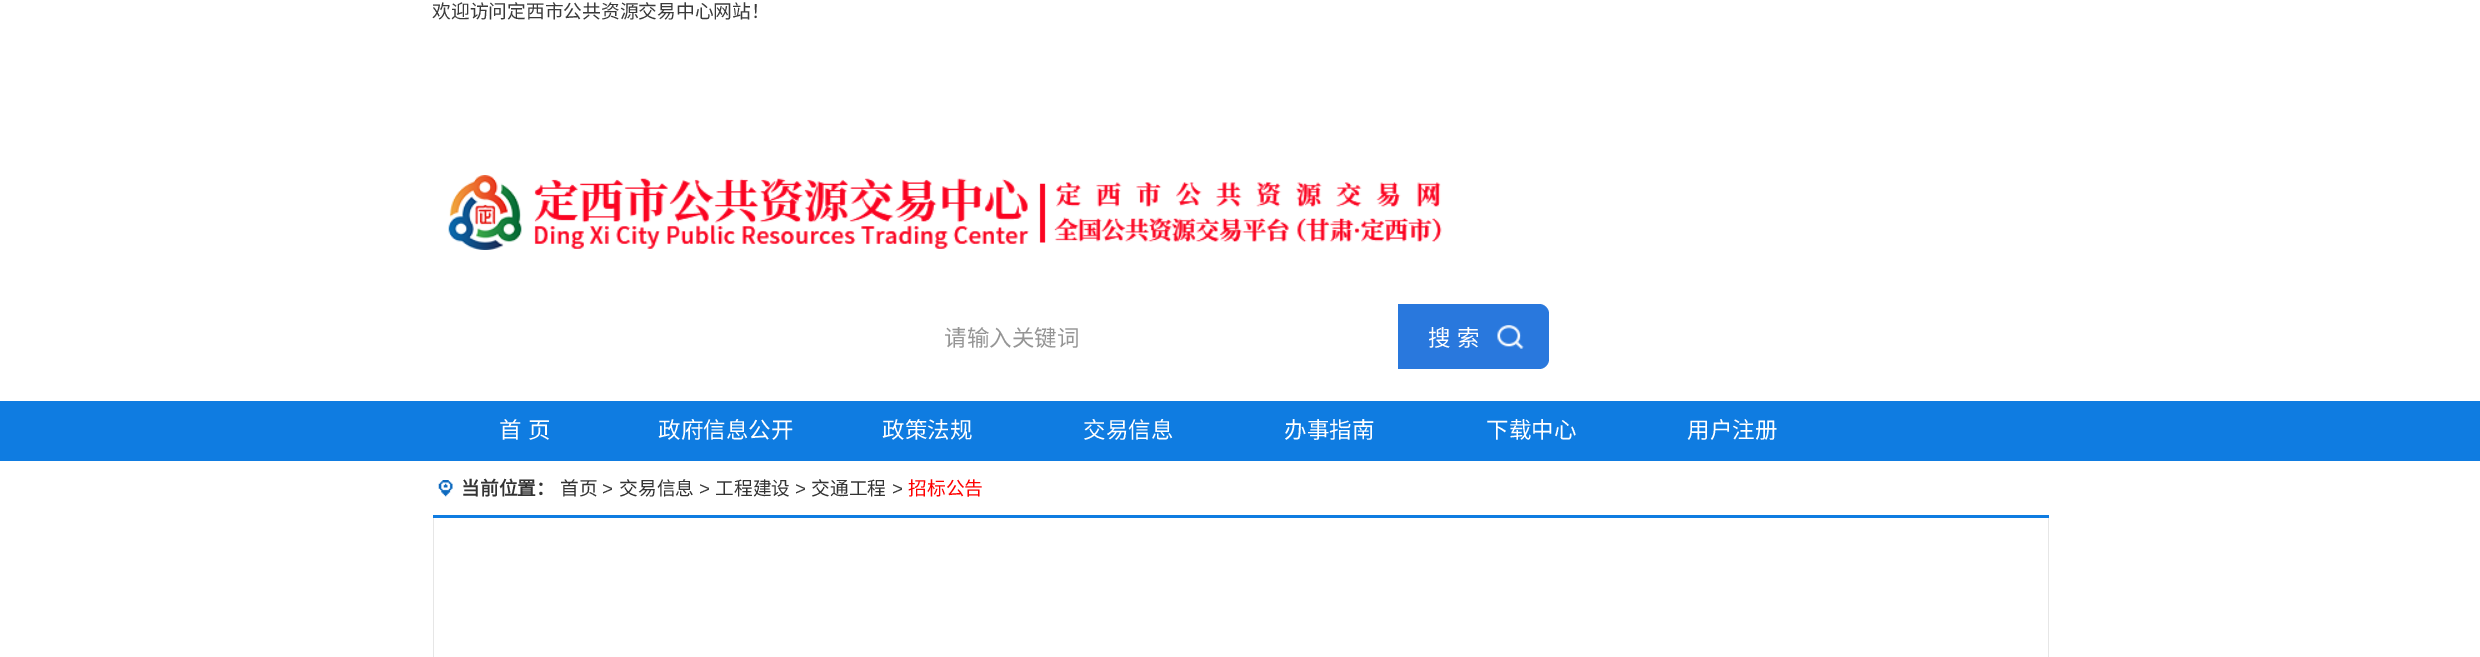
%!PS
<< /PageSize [2480 657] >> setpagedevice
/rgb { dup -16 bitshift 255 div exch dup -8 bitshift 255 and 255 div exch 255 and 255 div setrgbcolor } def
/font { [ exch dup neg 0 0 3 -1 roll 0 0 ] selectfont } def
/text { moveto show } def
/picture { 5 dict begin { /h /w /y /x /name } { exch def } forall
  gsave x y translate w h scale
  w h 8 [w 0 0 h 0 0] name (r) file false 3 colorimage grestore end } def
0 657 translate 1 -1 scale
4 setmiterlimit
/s1 { /NotoSansCJKSC-Regular 18.75 font 16#3A3A3A rgb } def
/s2 { /NotoSansCJKSC-Regular 22.5 font 16#959595 rgb } def
/s3 { /NotoSansCJKSC-Regular 22.5 font 16#FFFFFF rgb } def
/s4 { /NotoSansCJKSC-Bold 18.75 font 16#333333 rgb } def
/s5 { /NotoSansCJKSC-Regular 18.75 font 16#333333 rgb } def
/s6 { /LiberationSans-Regular 18.75 font 16#3A3A3A rgb } def
/s7 { /NotoSansCJKSC-Regular 18.75 font 16#FF0000 rgb } def
16#FFFFFF rgb
0 0 2480 657 rectfill
s1
(欢迎访问定西市公共资源交易中心网站！) 432 18 text
(pic1.raw) 448 175 994 75 picture
s2
(请输入关键词) 944 346 text
16#2978DD rgb
1398 304 moveto 1539 304 lineto 1544.5 304 1549 308.5 1549 314 curveto 1549 359 lineto 1549 364.5 1544.5 369 1539 369 curveto 1398 369 lineto closepath fill
(pic2.raw) 1497 325 27 24 picture
16#FFFFFF rgb
1428 346 moveto 1 0 32 (搜 索) widthshow
16#0F7CE1 rgb
0 401 2480 60 rectfill
16#FFFFFF rgb
499 438 moveto 1 0 32 (首 页) widthshow
(政府信息公开) 658 438 text
(政策法规) 882 438 text
(交易信息) 1083 438 text
(办事指南) 1284 438 text
(下载中心) 1486 438 text
(用户注册) 1687 438 text
(pic3.raw) 438 480 15 17 picture
s4
(当前位置：) 461 495 text
s5
(首页) 560 495 text
s6
(>) 602 495 text
s5
(交易信息) 619 495 text
s6
(>) 699 495 text
s5
(工程建设) 715 495 text
s6
(>) 795 495 text
s5
(交通工程) 811 495 text
s6
(>) 892 495 text
s7
(招标公告) 908 495 text
16#0F7CE1 rgb
433 515 1616 3 rectfill
16#E6E6E6 rgb
2048 518 1 139 rectfill
433 518 1 139 rectfill
showpage
